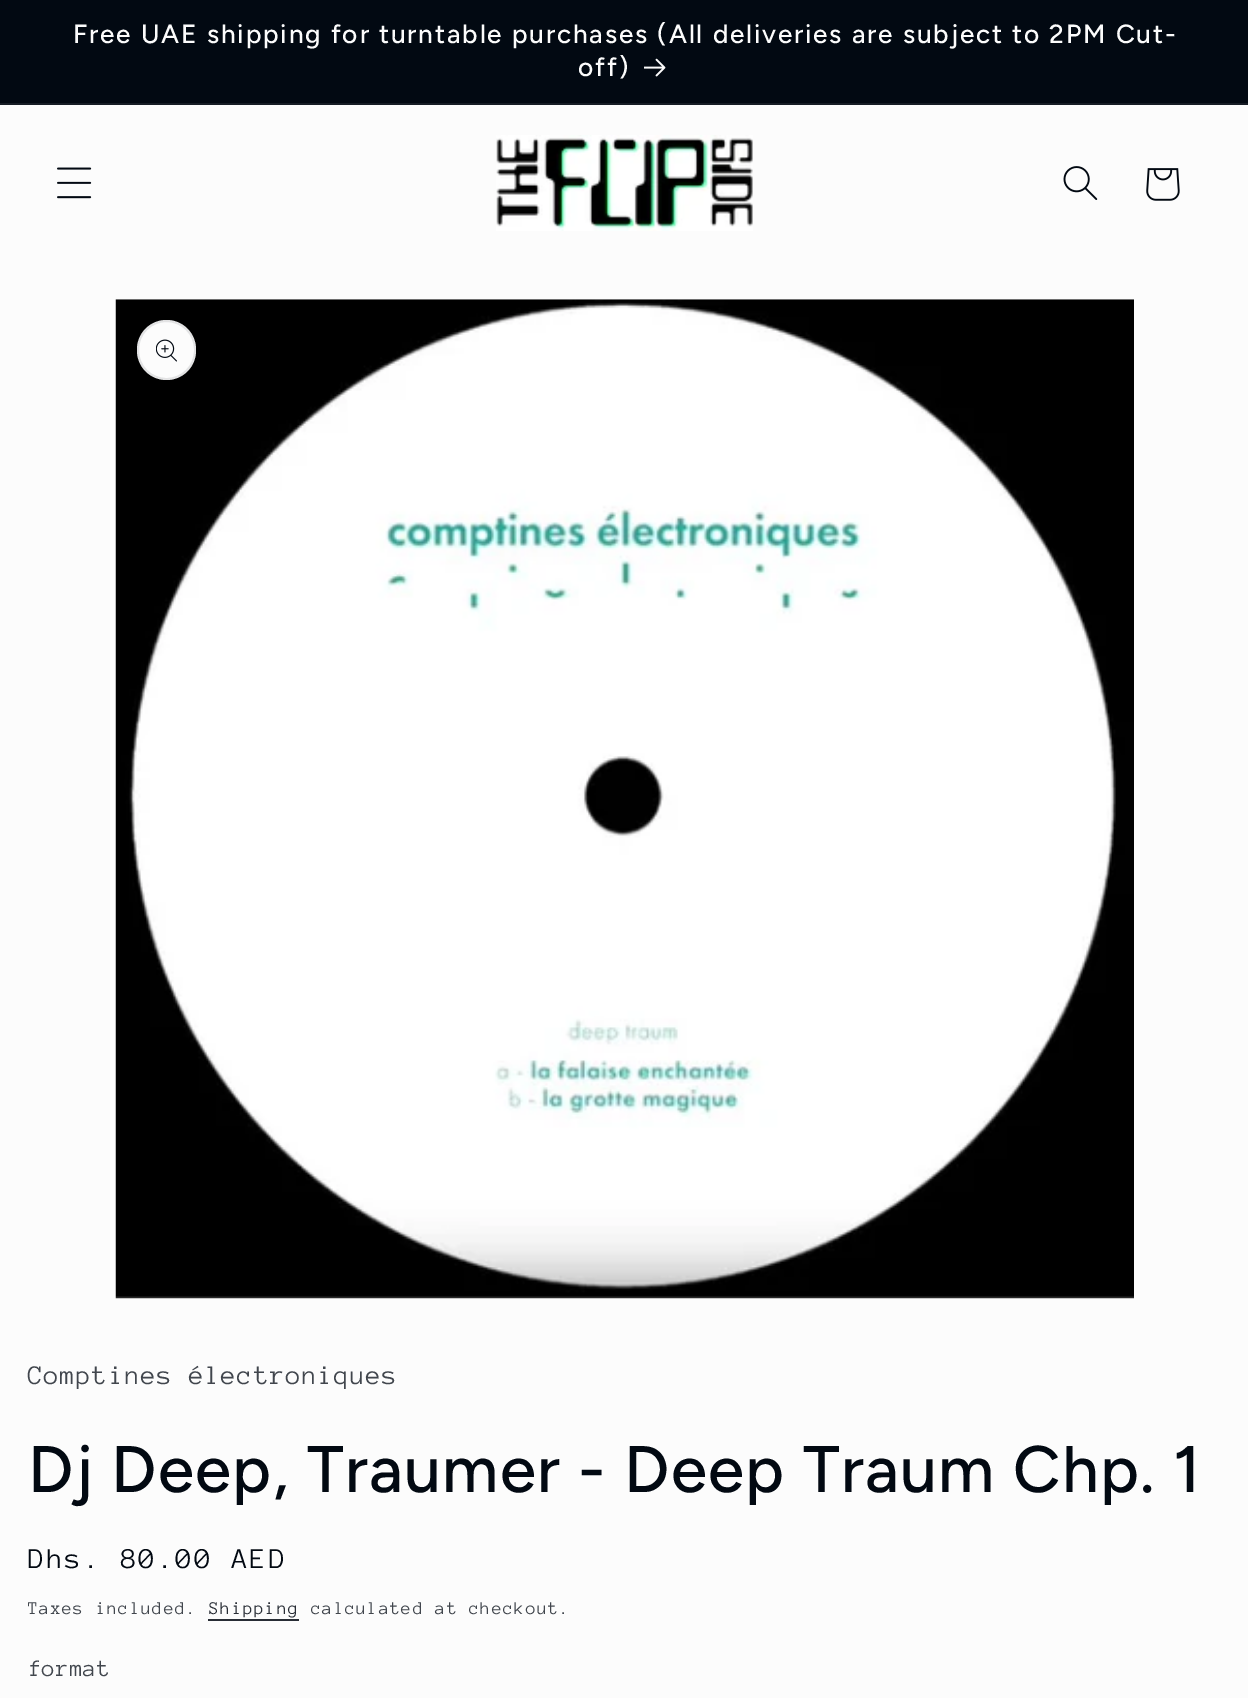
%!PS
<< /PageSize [1248 1698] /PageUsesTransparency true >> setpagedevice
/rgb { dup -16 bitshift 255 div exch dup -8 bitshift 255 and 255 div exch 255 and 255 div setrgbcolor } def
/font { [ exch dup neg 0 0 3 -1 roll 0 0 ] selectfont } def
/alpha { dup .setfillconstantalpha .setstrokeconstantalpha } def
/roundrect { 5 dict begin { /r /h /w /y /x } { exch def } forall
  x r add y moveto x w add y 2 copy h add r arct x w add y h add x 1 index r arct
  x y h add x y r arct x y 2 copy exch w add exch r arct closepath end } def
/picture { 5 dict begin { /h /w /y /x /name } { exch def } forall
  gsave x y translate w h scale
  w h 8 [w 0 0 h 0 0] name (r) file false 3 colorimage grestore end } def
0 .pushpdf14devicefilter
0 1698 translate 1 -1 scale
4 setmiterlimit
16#FCFCFC rgb
0 0 1248 1698 rectfill
16#020912 rgb
0 0 1248 103 rectfill
16#161C25 rgb
0 103 1248 2 rectfill
/Figtree-Medium 26.25 font
16#FCFCFC rgb
73 43 moveto 1.85 0 (Free UAE shipping for turntable purchases \(All deliveries are subject to 2PM Cut-) ashow
578 76 moveto 1.85 0 (off\)) ashow
(pic1.raw) 644 58 22 19 picture
(pic2.raw) 57 167 35 32 picture
(pic3.raw) 496 135 257 96 picture
(pic4.raw) 1063 166 35 34 picture
(pic5.raw) 1146 168 34 33 picture
(pic6.raw) 115 299 1019 1000 picture
137 320 59 60 29.5 roundrect fill
0.1 alpha
16#020912 rgb
2 setlinewidth
138 321 57 58 28.5 roundrect stroke
1 alpha
(pic7.raw) 156 339 21 23 picture
/AnonymousPro-Regular 27.5 font
16#41464D rgb
28 1384 moveto 1.1 0 (Comptines électroniques) ashow
/Figtree-Medium 65.6 font
16#020912 rgb
28 1492 moveto 1.3 0 (Dj Deep, Traumer - Deep Traum Chp. 1) ashow
/AnonymousPro-Regular 29.5 font
28 1568 moveto 2.4 0 (Dhs. 80.00 AED) ashow
/AnonymousPro-Regular 18.4 font
16#41464D rgb
28 1614 moveto 1.25 0 (Taxes included.) ashow
16#282D35 rgb
209 1614 moveto 1.25 0 (Shipping) ashow
208 1619 91 2 rectfill
16#41464D rgb
311 1614 moveto 1.25 0 (calculated at checkout.) ashow
/AnonymousPro-Regular 24 font
28 1676 moveto 0.75 0 (format) ashow
.poppdf14devicefilter showpage
